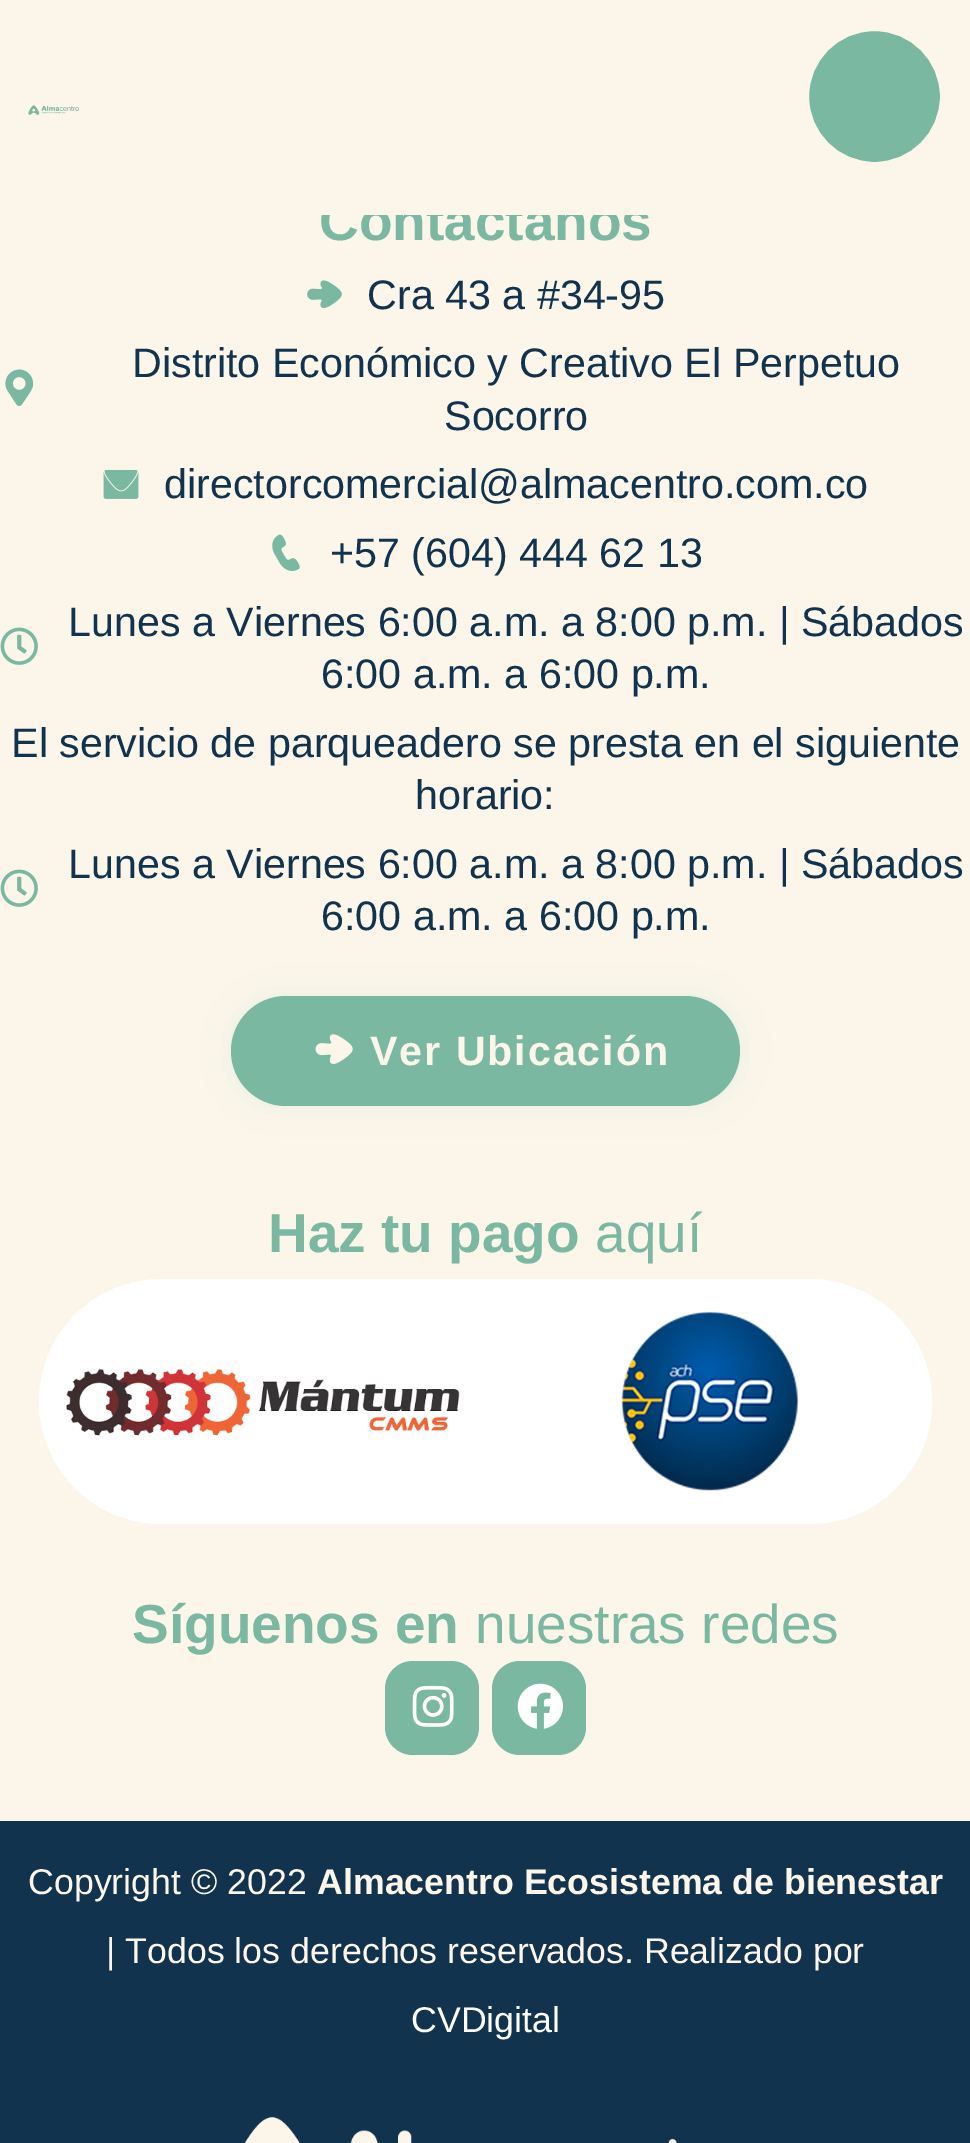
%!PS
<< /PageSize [970 2143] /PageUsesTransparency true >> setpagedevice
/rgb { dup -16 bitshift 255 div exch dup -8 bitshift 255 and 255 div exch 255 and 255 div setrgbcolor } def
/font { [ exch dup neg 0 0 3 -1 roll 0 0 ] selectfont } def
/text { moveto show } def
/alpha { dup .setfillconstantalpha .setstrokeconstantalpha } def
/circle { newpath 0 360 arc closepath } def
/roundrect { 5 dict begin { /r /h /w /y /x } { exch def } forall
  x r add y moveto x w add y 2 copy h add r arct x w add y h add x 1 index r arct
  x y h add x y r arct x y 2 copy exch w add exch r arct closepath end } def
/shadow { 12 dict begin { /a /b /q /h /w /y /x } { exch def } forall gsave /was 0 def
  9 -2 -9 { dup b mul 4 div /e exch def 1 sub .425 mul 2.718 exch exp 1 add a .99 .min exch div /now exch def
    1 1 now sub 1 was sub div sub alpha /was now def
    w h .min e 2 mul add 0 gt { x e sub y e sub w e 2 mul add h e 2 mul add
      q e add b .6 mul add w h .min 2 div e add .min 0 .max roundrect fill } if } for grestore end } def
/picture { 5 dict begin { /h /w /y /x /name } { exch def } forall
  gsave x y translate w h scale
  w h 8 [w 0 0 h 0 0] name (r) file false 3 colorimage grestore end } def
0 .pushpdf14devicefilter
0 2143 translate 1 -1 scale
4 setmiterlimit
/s1 { /LiberationSans-Bold 55 font 16#7AB8A2 rgb } def
/s2 { /LiberationSans-Regular 41.25 font 16#11334E rgb } def
/s3 { /LiberationSans-Regular 55 font 16#7AB8A2 rgb } def
/s4 { /LiberationSans-Regular 35.75 font 16#FCF5E9 rgb } def
/s5 { /LiberationSans-Bold 35.75 font 16#FCF5E9 rgb } def
/s6 { /LiberationSans-Regular 35.75 font 16#FFFFFF rgb } def
16#FCF5E9 rgb
0 0 970 2143 rectfill
s1
(Contáctanos) 319 240 text
16#FCF5E9 rgb
321 199 327 16 rectfill
(pic1.raw) 28 105 51 10 picture
16#7AB8A2 rgb
874.5 96.5 67 circle gsave fill grestore
16#FCF5E9 rgb
3 setlinewidth
stroke
(pic2.raw) 307 280 35 29 picture
s2
(Cra 43 a #34-95) 367 309 text
(pic3.raw) 5 369 29 37 picture
(Distrito Económico y Creativo El Perpetuo) 132 377 text
(Socorro) 444 430 text
(pic4.raw) 103 470 36 29 picture
(directorcomercial@almacentro.com.co) 164 498 text
(pic5.raw) 272 534 28 37 picture
(+57 \(604\) 444 62 13) 330 567 text
(pic6.raw) 0 627 38 38 picture
(Lunes a Viernes 6:00 a.m. a 8:00 p.m. | Sábados) 68 636 text
(6:00 a.m. a 6:00 p.m.) 321 688 text
(El servicio de parqueadero se presta en el siguiente) 11 757 text
(horario:) 415 809 text
(pic6.raw) 0 869 38 38 picture
(Lunes a Viernes 6:00 a.m. a 8:00 p.m. | Sábados) 68 878 text
(6:00 a.m. a 6:00 p.m.) 321 930 text
16#00776F rgb
231 996 509 110 55 14 0.07 shadow
16#7AB8A2 rgb
231 996 509 110 55 roundrect fill
(pic7.raw) 315 1034 38 30 picture
/LiberationSans-Bold 41.25 font
16#FCF5E9 rgb
370 1065 moveto 1.9 0 (Ver Ubicación) ashow
s1
(Haz tu pago) 268 1252 text
s3
(aquí) 595 1252 text
16#FFFFFF rgb
39 1279 893 245 122.5 roundrect fill
(pic8.raw) 66 1369 394 67 picture
(pic9.raw) 621 1311 178 180 picture
s1
(Síguenos en) 132 1643 text
s3
(nuestras redes) 475 1643 text
385 1661 94 94 28 roundrect fill
(pic10.raw) 412 1685 42 42 picture
492 1661 94 94 28 roundrect fill
(pic11.raw) 517 1683 46 46 picture
16#11334E rgb
0 1821 970 322 rectfill
s4
(Copyright © 2022) 28 1894 text
s5
(Almacentro Ecosistema de bienestar) 317 1894 text
s4
(| Todos los derechos reservados. Realizado por) 106 1963 text
s6
(CVDigital) 411 2032 text
(pic12.raw) 244 2117 433 26 picture
.poppdf14devicefilter showpage
